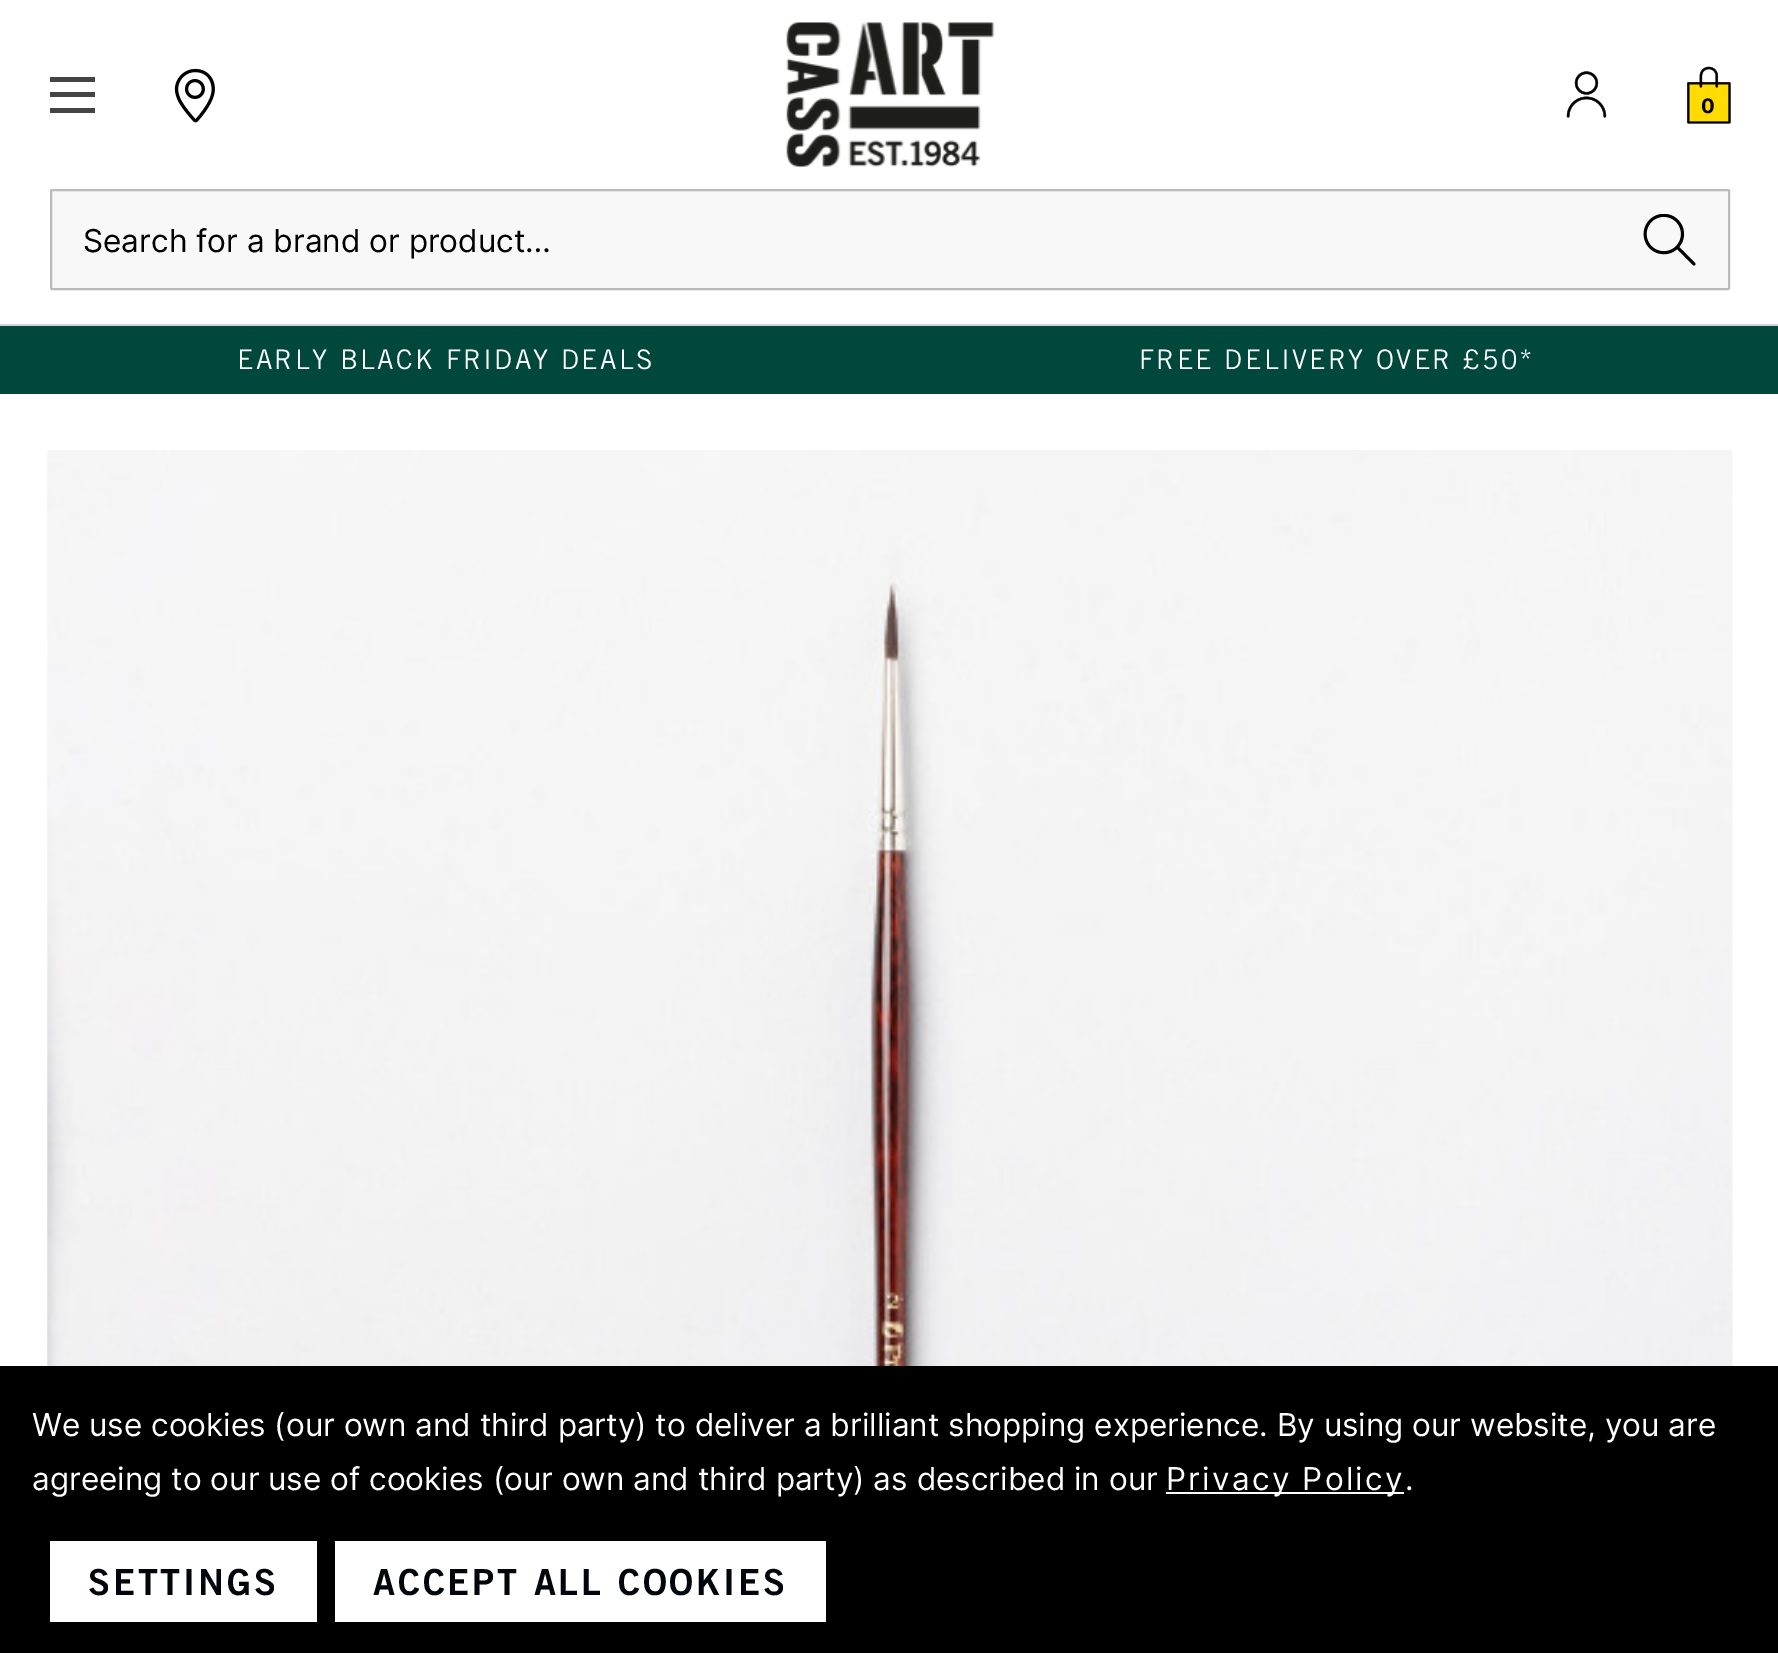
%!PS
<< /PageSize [1778 1653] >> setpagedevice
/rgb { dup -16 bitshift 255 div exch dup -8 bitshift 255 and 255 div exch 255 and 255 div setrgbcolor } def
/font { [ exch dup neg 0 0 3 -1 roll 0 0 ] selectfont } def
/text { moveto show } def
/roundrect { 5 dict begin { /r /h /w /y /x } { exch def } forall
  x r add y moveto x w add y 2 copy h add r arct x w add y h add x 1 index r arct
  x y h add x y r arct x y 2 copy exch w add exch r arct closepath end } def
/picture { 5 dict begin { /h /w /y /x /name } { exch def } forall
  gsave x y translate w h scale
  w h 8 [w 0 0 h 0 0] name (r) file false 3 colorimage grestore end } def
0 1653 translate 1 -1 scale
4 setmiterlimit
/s1 { /Inter-Bold 20 font 16#000000 rgb } def
/s2 { /Inter-Regular 31.5 font 16#000000 rgb } def
/s3 { /Inter-Regular 31.5 font 16#FFFFFF rgb } def
16#FFFFFF rgb
0 0 1778 1653 rectfill
16#444444 rgb
50 92 45 5 rectfill
50 77 45 5 rectfill
50 108 45 5 rectfill
(pic1.raw) 174 68 41 55 picture
(pic2.raw) 786 22 209 145 picture
(pic3.raw) 1566 71 41 47 picture
(pic4.raw) 1687 66 44 58 picture
s1
(0) 1701 113 text
16#F8F8F8 rgb
51 190 1678 99 1 roundrect gsave fill grestore
16#BABABA rgb
2 setlinewidth
stroke
s2
(Search for a brand or product…) 83 252 text
(pic5.raw) 1643 214 53 52 picture
16#D1D2D4 rgb
0 324 1778 2 rectfill
16#00483C rgb
0 326 1778 68 rectfill
/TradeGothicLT-Regular 27 font
16#FFFFFF rgb
237 369 moveto 2.25 0 (EARLY BLACK FRIDAY DEALS) ashow
1139 369 moveto 2.25 0 (FREE DELIVERY OVER £50*) ashow
(pic6.raw) 47 450 1686 916 picture
16#000000 rgb
0 1366 1778 287 rectfill
s3
(We use cookies \(our own and third party\) to deliver a brilliant shopping experience. By using our website, you are) 32 1436 text
(agreeing to our use of cookies \(our own and third party\) as described in our) 32 1490 text
1166 1492 238 2 rectfill
1166 1490 moveto 2.25 0 (Privacy Policy) ashow
(.) 1405 1490 text
50 1541 267 81 rectfill
/TradeGothicLT-Bold 36 font
16#00060B rgb
88 1595 moveto 2.8 0 (SETTINGS) ashow
16#FFFFFF rgb
335 1541 491 81 rectfill
16#00060B rgb
373 1595 moveto 2.8 0 (ACCEPT ALL COOKIES) ashow
showpage
